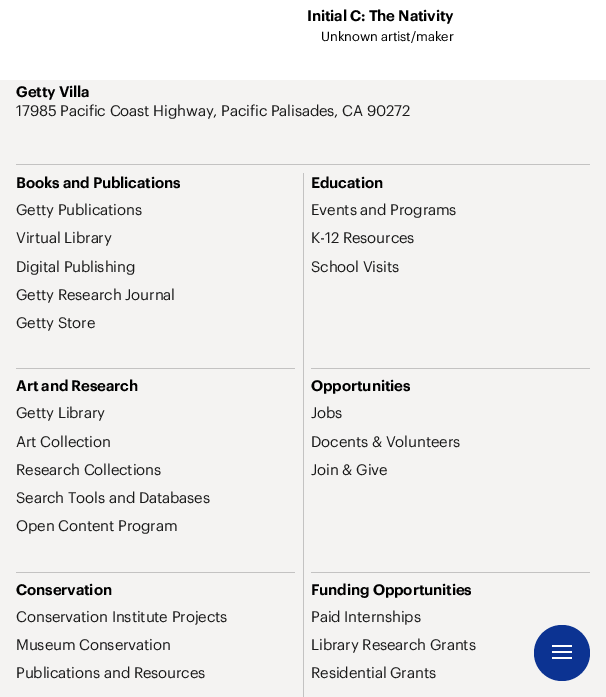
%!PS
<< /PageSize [606 697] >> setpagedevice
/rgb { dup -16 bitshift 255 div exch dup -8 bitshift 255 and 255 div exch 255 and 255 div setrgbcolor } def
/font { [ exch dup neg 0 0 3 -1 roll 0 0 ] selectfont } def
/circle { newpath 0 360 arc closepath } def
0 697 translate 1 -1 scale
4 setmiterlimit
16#F4F3F2 rgb
0 0 606 697 rectfill
16#FFFFFF rgb
0 0 606 80 rectfill
/Graphik-SemiBold 15 font
16#000000 rgb
307 21 moveto -0.15 0 (Initial C: The Nativity) ashow
/Graphik-Regular 13 font
321 41 moveto -0.1 0 (Unknown artist/maker) ashow
/Graphik-SemiBold 15 font
16 97 moveto -0.15 0 (Getty Villa) ashow
/Graphik-Regular 15 font
16#1A1A1A rgb
16 116 moveto -0.15 0 (17985 Pacific Coast Highway, Pacific Palisades, CA 90272) ashow
16#C3C2C2 rgb
16 164 574 1 rectfill
/Graphik-SemiBold 15 font
16#000000 rgb
16 188 moveto -0.15 0 (Books and Publications) ashow
/Graphik-Regular 15 font
16#1A1A1A rgb
16 215 moveto -0.15 0 (Getty Publications) ashow
16 243 moveto -0.15 0 (Virtual Library) ashow
16 272 moveto -0.15 0 (Digital Publishing) ashow
16 300 moveto -0.15 0 (Getty Research Journal) ashow
16 328 moveto -0.15 0 (Getty Store) ashow
16#C3C2C2 rgb
303 173 1 524 rectfill
/Graphik-SemiBold 15 font
16#000000 rgb
311 188 moveto -0.15 0 (Education) ashow
/Graphik-Regular 15 font
16#1A1A1A rgb
311 215 moveto -0.15 0 (Events and Programs) ashow
311 243 moveto -0.15 0 (K-12 Resources) ashow
311 272 moveto -0.15 0 (School Visits) ashow
16#C3C2C2 rgb
16 368 279 1 rectfill
/Graphik-SemiBold 15 font
16#000000 rgb
16 391 moveto -0.15 0 (Art and Research) ashow
/Graphik-Regular 15 font
16#1A1A1A rgb
16 418 moveto -0.15 0 (Getty Library) ashow
16 447 moveto -0.15 0 (Art Collection) ashow
16 475 moveto -0.15 0 (Research Collections) ashow
16 503 moveto -0.15 0 (Search Tools and Databases) ashow
16 531 moveto -0.15 0 (Open Content Program) ashow
16#C3C2C2 rgb
311 368 279 1 rectfill
/Graphik-SemiBold 15 font
16#000000 rgb
311 391 moveto -0.15 0 (Opportunities) ashow
/Graphik-Regular 15 font
16#1A1A1A rgb
311 418 moveto -0.15 0 (Jobs) ashow
311 447 moveto -0.15 0 (Docents & Volunteers) ashow
311 475 moveto -0.15 0 (Join & Give) ashow
16#C3C2C2 rgb
16 572 279 1 rectfill
/Graphik-SemiBold 15 font
16#000000 rgb
16 595 moveto -0.15 0 (Conservation) ashow
/Graphik-Regular 15 font
16#1A1A1A rgb
16 622 moveto -0.15 0 (Conservation Institute Projects) ashow
16 650 moveto -0.15 0 (Museum Conservation) ashow
16 678 moveto -0.15 0 (Publications and Resources) ashow
16#C3C2C2 rgb
311 572 279 1 rectfill
/Graphik-SemiBold 15 font
16#000000 rgb
311 595 moveto -0.15 0 (Funding Opportunities) ashow
/Graphik-Regular 15 font
16#1A1A1A rgb
311 622 moveto -0.15 0 (Paid Internships) ashow
311 650 moveto -0.15 0 (Library Research Grants) ashow
311 678 moveto -0.15 0 (Residential Grants) ashow
16#0C3392 rgb
562 653 28 circle fill
16#FFFFFF rgb
552 651 20 2 rectfill
552 645 20 2 rectfill
552 657 20 2 rectfill
showpage
